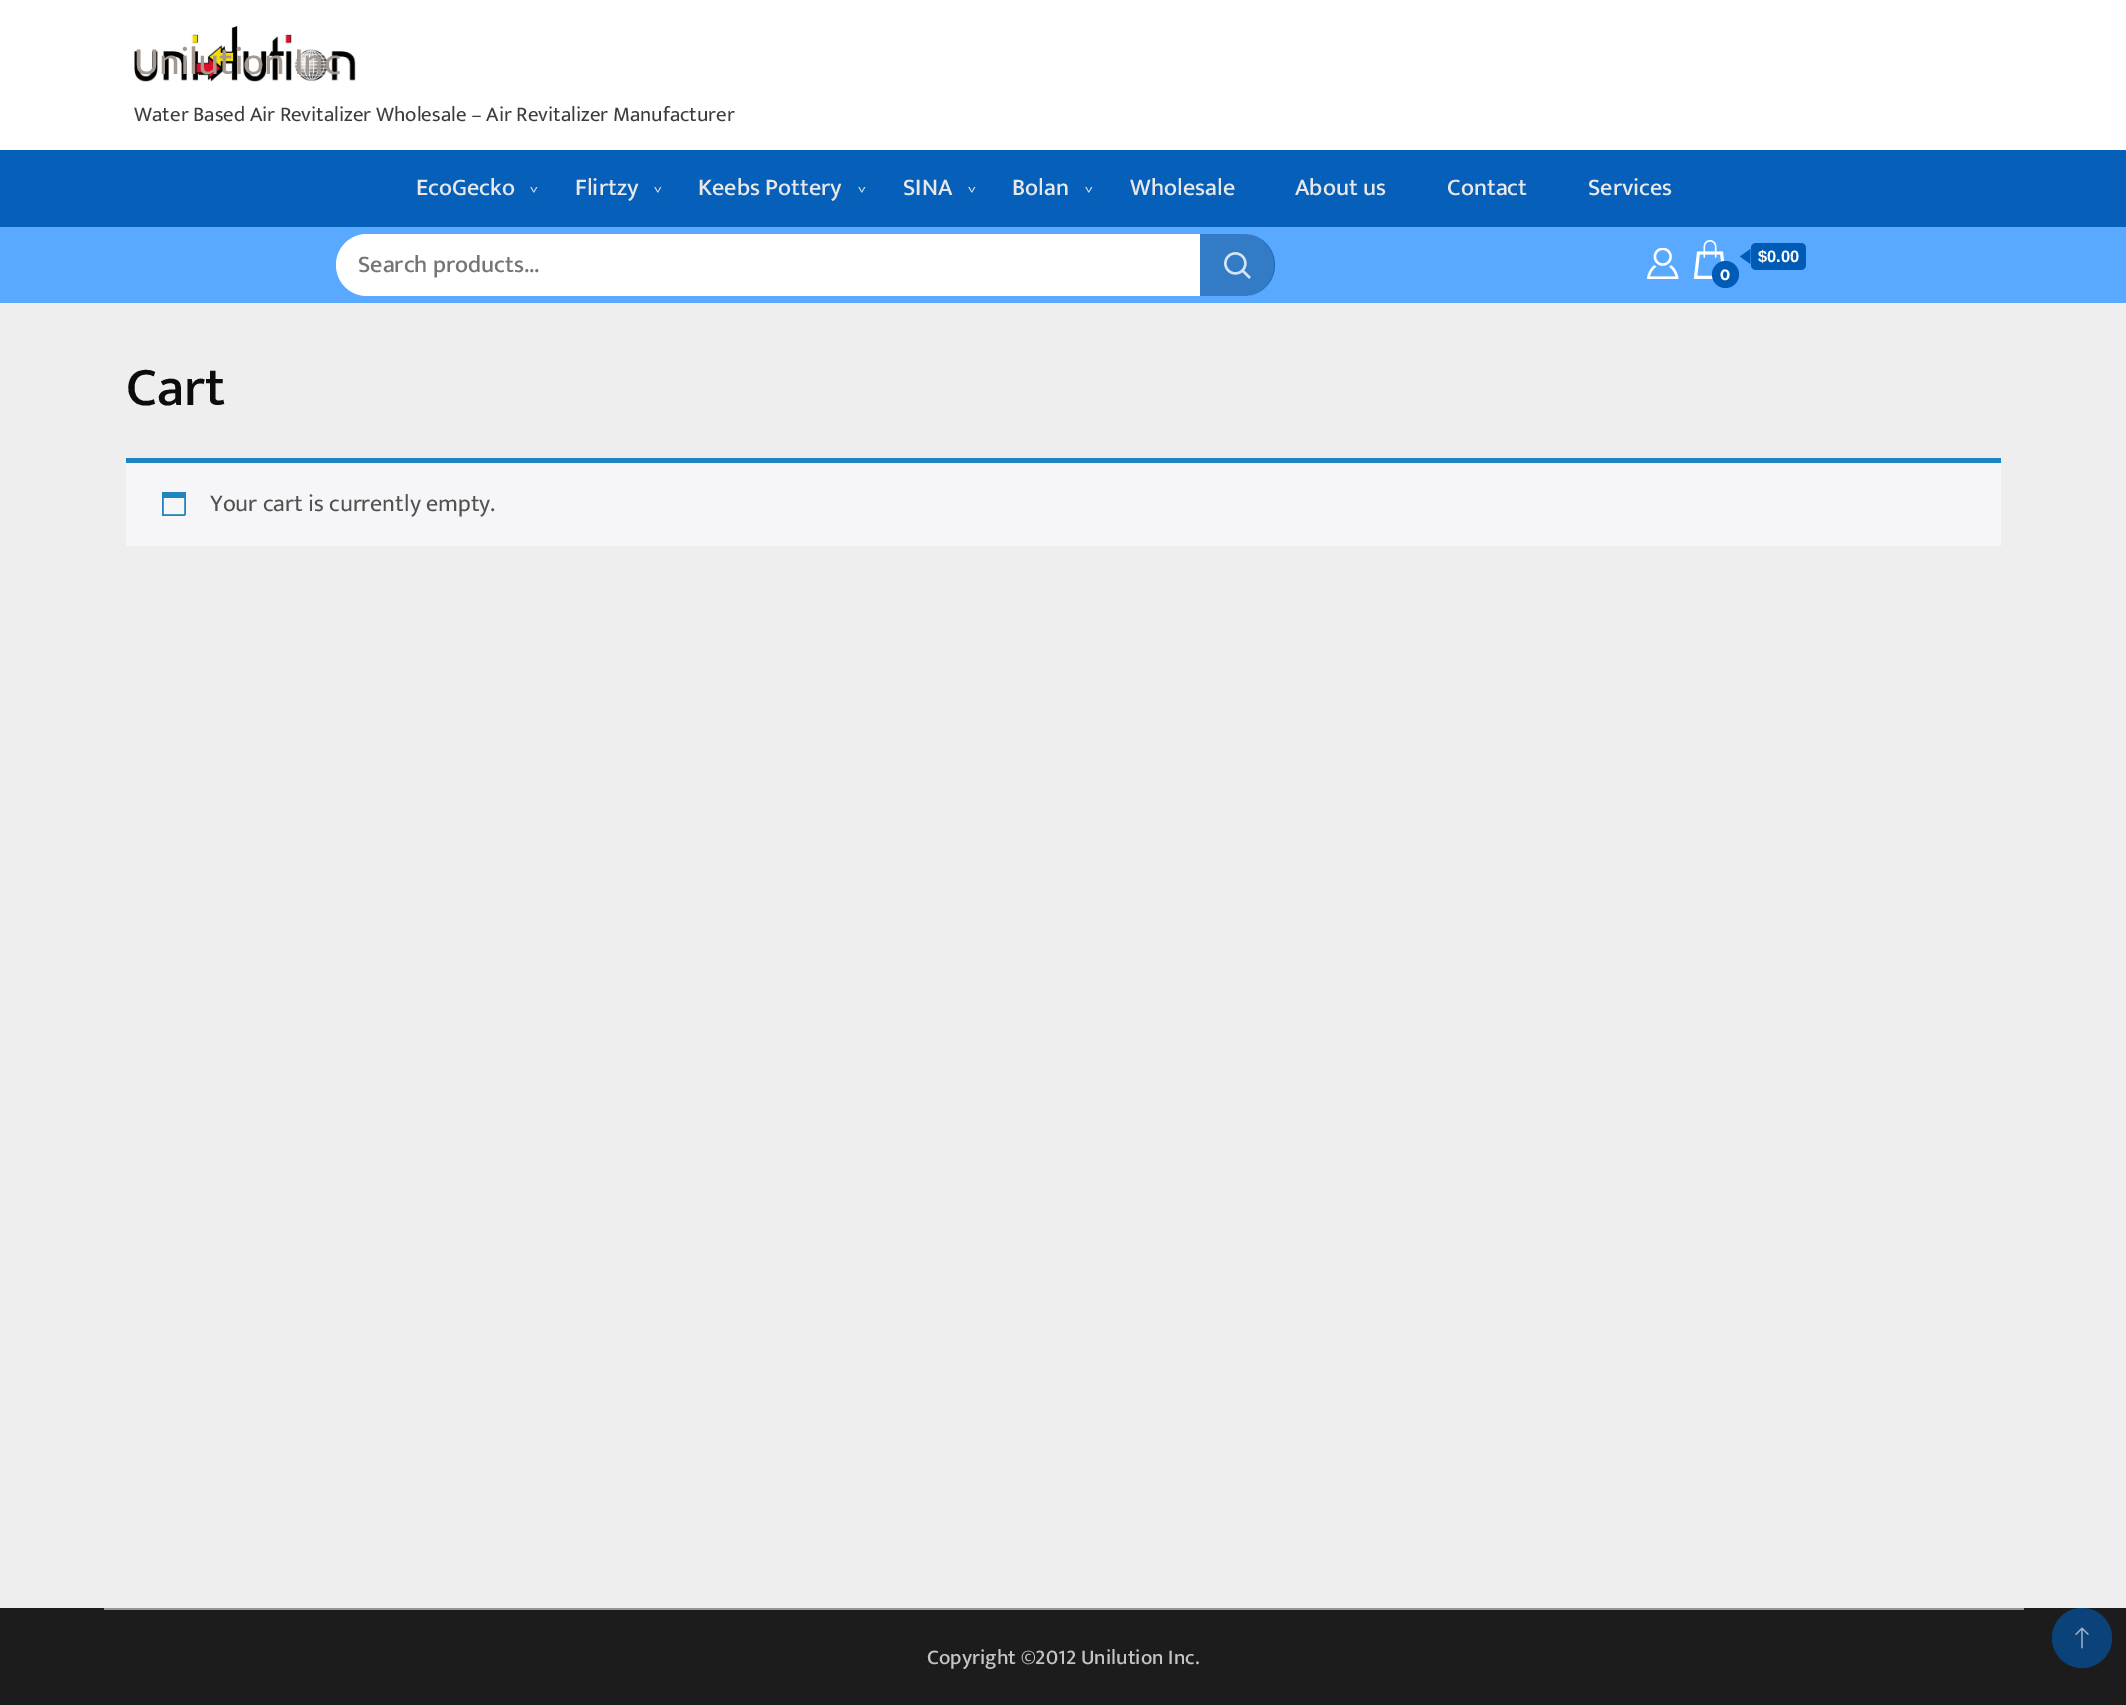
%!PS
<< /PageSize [2126 1705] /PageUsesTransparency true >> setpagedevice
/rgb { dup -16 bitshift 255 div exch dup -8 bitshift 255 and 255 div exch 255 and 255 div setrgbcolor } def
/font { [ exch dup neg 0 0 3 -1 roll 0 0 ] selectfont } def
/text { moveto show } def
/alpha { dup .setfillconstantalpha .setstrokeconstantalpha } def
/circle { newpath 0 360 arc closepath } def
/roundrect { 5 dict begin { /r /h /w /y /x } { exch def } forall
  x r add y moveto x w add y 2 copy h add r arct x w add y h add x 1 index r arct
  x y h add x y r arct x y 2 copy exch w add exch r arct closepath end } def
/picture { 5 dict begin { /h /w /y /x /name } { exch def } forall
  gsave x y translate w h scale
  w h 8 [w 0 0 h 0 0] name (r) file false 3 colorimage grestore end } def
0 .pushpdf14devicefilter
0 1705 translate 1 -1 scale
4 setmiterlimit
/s1 { /Mukta-Regular 39 font 16#A5998F rgb } def
/s2 { /Mukta-Regular 21 font 16#3D3D3D rgb } def
/s3 { /Mukta-Medium 24 font 16#E8E8E8 rgb } def
/s4 { /Mukta-Medium 24 font 16#757575 rgb } def
/s5 { /LiberationSans-Bold 16.5 font 16#FFFFFF rgb } def
/s6 { /Montserrat-Bold 15 font 16#FFFFFF rgb } def
/s7 { /Mukta-Medium 55 font 16#0C0C0C rgb } def
/s8 { /Mukta-Regular 24 font 16#515151 rgb } def
/s9 { /Mukta-Medium 21 font 16#C4C4C4 rgb } def
16#EEEEEE rgb
0 0 2126 1705 rectfill
16#FFFFFF rgb
0 0 2126 150 rectfill
(pic1.raw) 134 26 222 56 picture
s1
(Unilution Inc) 134 74 text
s2
(Water Based Air Revitalizer Wholesale – Air Revitalizer Manufacturer) 134 121 text
16#065FB8 rgb
0 150 2126 77 rectfill
s3
(EcoGecko) 416 195 text
/Mukta-Medium 15 font
gsave 530 186 translate 90 rotate 0 0 moveto (>) show grestore
s3
(Flirtzy) 575 195 text
/Mukta-Medium 15 font
gsave 654 186 translate 90 rotate 0 0 moveto (>) show grestore
s3
(Keebs Pottery) 698 195 text
/Mukta-Medium 15 font
gsave 858 186 translate 90 rotate 0 0 moveto (>) show grestore
s3
(SINA) 903 195 text
/Mukta-Medium 15 font
gsave 968 186 translate 90 rotate 0 0 moveto (>) show grestore
s3
(Bolan) 1012 195 text
/Mukta-Medium 15 font
gsave 1085 186 translate 90 rotate 0 0 moveto (>) show grestore
s3
(Wholesale) 1130 195 text
(About us) 1295 195 text
(Contact) 1447 195 text
(Services) 1588 195 text
16#58A9FF rgb
0 227 2126 76 rectfill
16#FFFFFF rgb
336 234 938 62 31 roundrect fill
s4
(Search products...) 358 272 text
0.8 alpha
16#005BB7 rgb
1200 234 moveto 1244 234 lineto 1261 234 1275 248 1275 265 curveto 1275 282 1261 296 1244 296 curveto 1200 296 lineto closepath fill
1 alpha
(pic2.raw) 1224 252 27 27 picture
(pic3.raw) 1647 248 32 31 picture
(pic4.raw) 1693 240 32 39 picture
1751 243 55 27 5 roundrect fill
1750.5 249 moveto 1750.5 264 lineto 1740 256.5 lineto closepath fill
s5
($0.00) 1758 262 text
16#005BB7 rgb
1725.5 274.5 13.5 circle fill
s6
(0) 1720 280 text
s7
(Cart) 126 405 text
16#F6F5F8 rgb
126 463 1875 83 rectfill
16#1E85BE rgb
126 458 1875 5 rectfill
(pic5.raw) 162 492 24 24 picture
s8
(Your cart is currently empty.) 210 511 text
16#1C1C1C rgb
0 1608 2126 97 rectfill
16#929497 rgb
104 1608 1920 2 rectfill
s9
(Copyright ©2012 Unilution Inc.) 927 1664 text
16#0B4279 rgb
2082 1638 30 circle fill
(pic6.raw) 2075 1627 14 22 picture
.poppdf14devicefilter showpage
